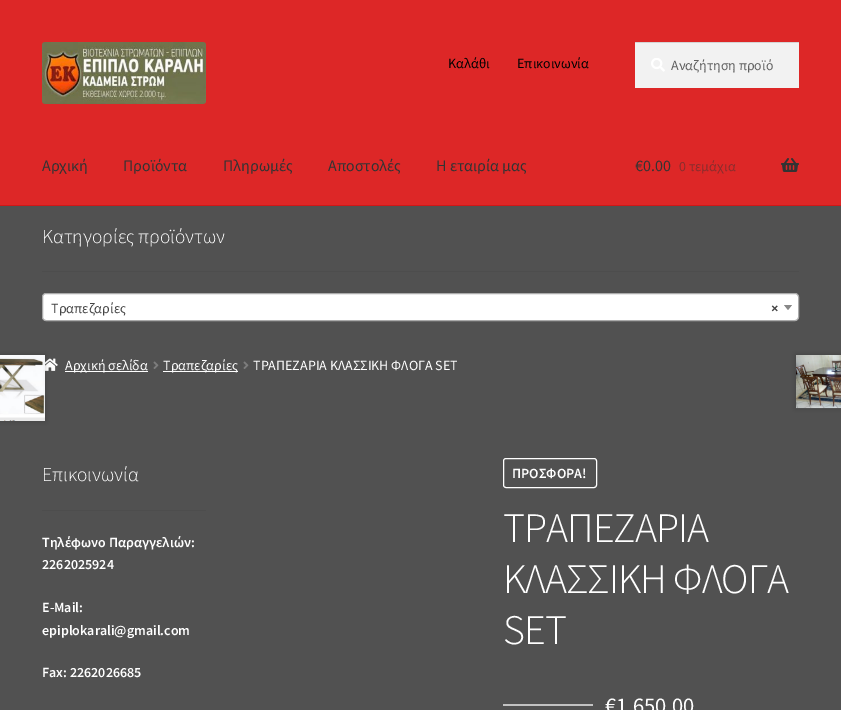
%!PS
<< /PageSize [841 710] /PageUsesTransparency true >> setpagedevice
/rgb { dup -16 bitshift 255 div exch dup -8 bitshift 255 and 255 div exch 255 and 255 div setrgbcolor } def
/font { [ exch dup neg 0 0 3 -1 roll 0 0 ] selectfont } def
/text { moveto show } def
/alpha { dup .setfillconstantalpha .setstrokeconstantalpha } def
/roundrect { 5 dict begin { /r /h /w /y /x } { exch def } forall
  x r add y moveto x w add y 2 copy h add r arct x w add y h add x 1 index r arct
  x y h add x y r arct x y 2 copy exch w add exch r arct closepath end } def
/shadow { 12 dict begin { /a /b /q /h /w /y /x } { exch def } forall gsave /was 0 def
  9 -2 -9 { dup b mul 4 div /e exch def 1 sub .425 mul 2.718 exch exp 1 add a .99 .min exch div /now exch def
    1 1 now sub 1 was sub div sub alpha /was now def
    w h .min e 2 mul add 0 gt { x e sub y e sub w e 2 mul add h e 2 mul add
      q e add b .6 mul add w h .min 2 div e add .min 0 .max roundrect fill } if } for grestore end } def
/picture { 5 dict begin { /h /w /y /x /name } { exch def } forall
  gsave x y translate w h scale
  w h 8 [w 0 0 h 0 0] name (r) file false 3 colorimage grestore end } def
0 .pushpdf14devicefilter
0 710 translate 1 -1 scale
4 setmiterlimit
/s1 { /SourceSansPro-Regular 14 font 16#020202 rgb } def
/s2 { /SourceSansPro-Regular 14 font 16#616161 rgb } def
/s3 { /SourceSansPro-Regular 16 font 16#333333 rgb } def
/s4 { /SourceSansPro-Regular 14 font 16#882D2D rgb } def
/s5 { /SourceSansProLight-Light 19.75 font 16#FFFFFF rgb } def
/s6 { /SourceSansPro-Regular 14 font 16#444444 rgb } def
/s7 { /SourceSansPro-Bold 14 font 16#444444 rgb } def
/s8 { /SourceSansPro-Regular 14 font 16#FFFFFF rgb } def
/s9 { /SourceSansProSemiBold-SemiBold 14 font 16#FFFFFF rgb } def
/s10 { /SourceSansPro-Regular 22.5 font 16#FFFFFF rgb } def
16#515151 rgb
0 0 841 710 rectfill
16#DD2727 rgb
0 0 841 205 rectfill
16#CE1818 rgb
0 205 841 1 rectfill
(pic1.raw) 42 42 164 62 picture
s1
(Καλάθι) 448 68 text
(Επικοινωνία) 517 68 text
16#F2F2F2 rgb
635 43 164 45 rectfill
(pic2.raw) 651 58 14 14 picture
16#D4D4D4 rgb
635 42 164 1 rectfill
s2
(Αναζήτηση προϊό) 671 70 text
s3
(Αρχική) 42 171 text
(Προϊόντα) 123 171 text
(Πληρωμές) 223 171 text
(Αποστολές) 328 171 text
(Η εταιρία μας) 436 171 text
(€0.00) 635 171 text
s4
(0 τεμάχια) 679 171 text
(pic3.raw) 781 158 18 14 picture
16#4D4D4D rgb
42 271 757 1 rectfill
s5
(Κατηγορίες προϊόντων) 42 243 text
42.5 293.5 756 27 3.5 roundrect gsave fill grestore
16#AAAAAA rgb
stroke
s6
(Τραπεζαρίες) 51 313 text
s7
(×) 771 313 text
16#888888 rgb
784 305 moveto 792 305 lineto 788 310 lineto closepath fill
(pic4.raw) 45 358 13 13 picture
16#FFFFFF rgb
65 371 83 1 rectfill
s8
(Αρχική σελίδα) 65 370 text
(pic5.raw) 153 361 6 8 picture
163 371 75 1 rectfill
(Τραπεζαρίες) 163 370 text
(pic5.raw) 243 361 6 8 picture
(ΤΡΑΠΕΖΑΡΙΑ ΚΛΑΣΣΙΚΗ ΦΛΟΓΑ SET) 253 370 text
16#4D4D4D rgb
42 510 164 1 rectfill
s5
(Επικοινωνία) 42 481 text
s9
(Τηλέφωνο Παραγγελιών:) 42 547 text
(2262025924) 42 569 text
(E-Mail:) 42 612 text
(epiplokarali@gmail.com) 42 635 text
(Fax: 2262026685) 42 677 text
16#000000 rgb
-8 355 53 66 0 2.5 0.2 shadow
(pic6.raw) 0 355 45 66 picture
796 355 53 53 0 2.5 0.2 shadow
(pic7.raw) 796 355 45 54 picture
16#FFFFFF rgb
503.5 458.5 93 29 2.5 roundrect stroke
(ΠΡΟΣΦΟΡΑ!) 512 478 text
/SourceSansProLight-Light 42 font
503 542 moveto -1 0 (ΤΡΑΠΕΖΑΡΙΑ) ashow
503 593 moveto -1 0 (ΚΛΑΣΣΙΚΗ ΦΛΟΓΑ) ashow
503 644 moveto -1 0 (SET) ashow
16#C2C2C2 rgb
503 704 90 2 rectfill
s10
(€1,650.00) 605 713 text
.poppdf14devicefilter showpage
